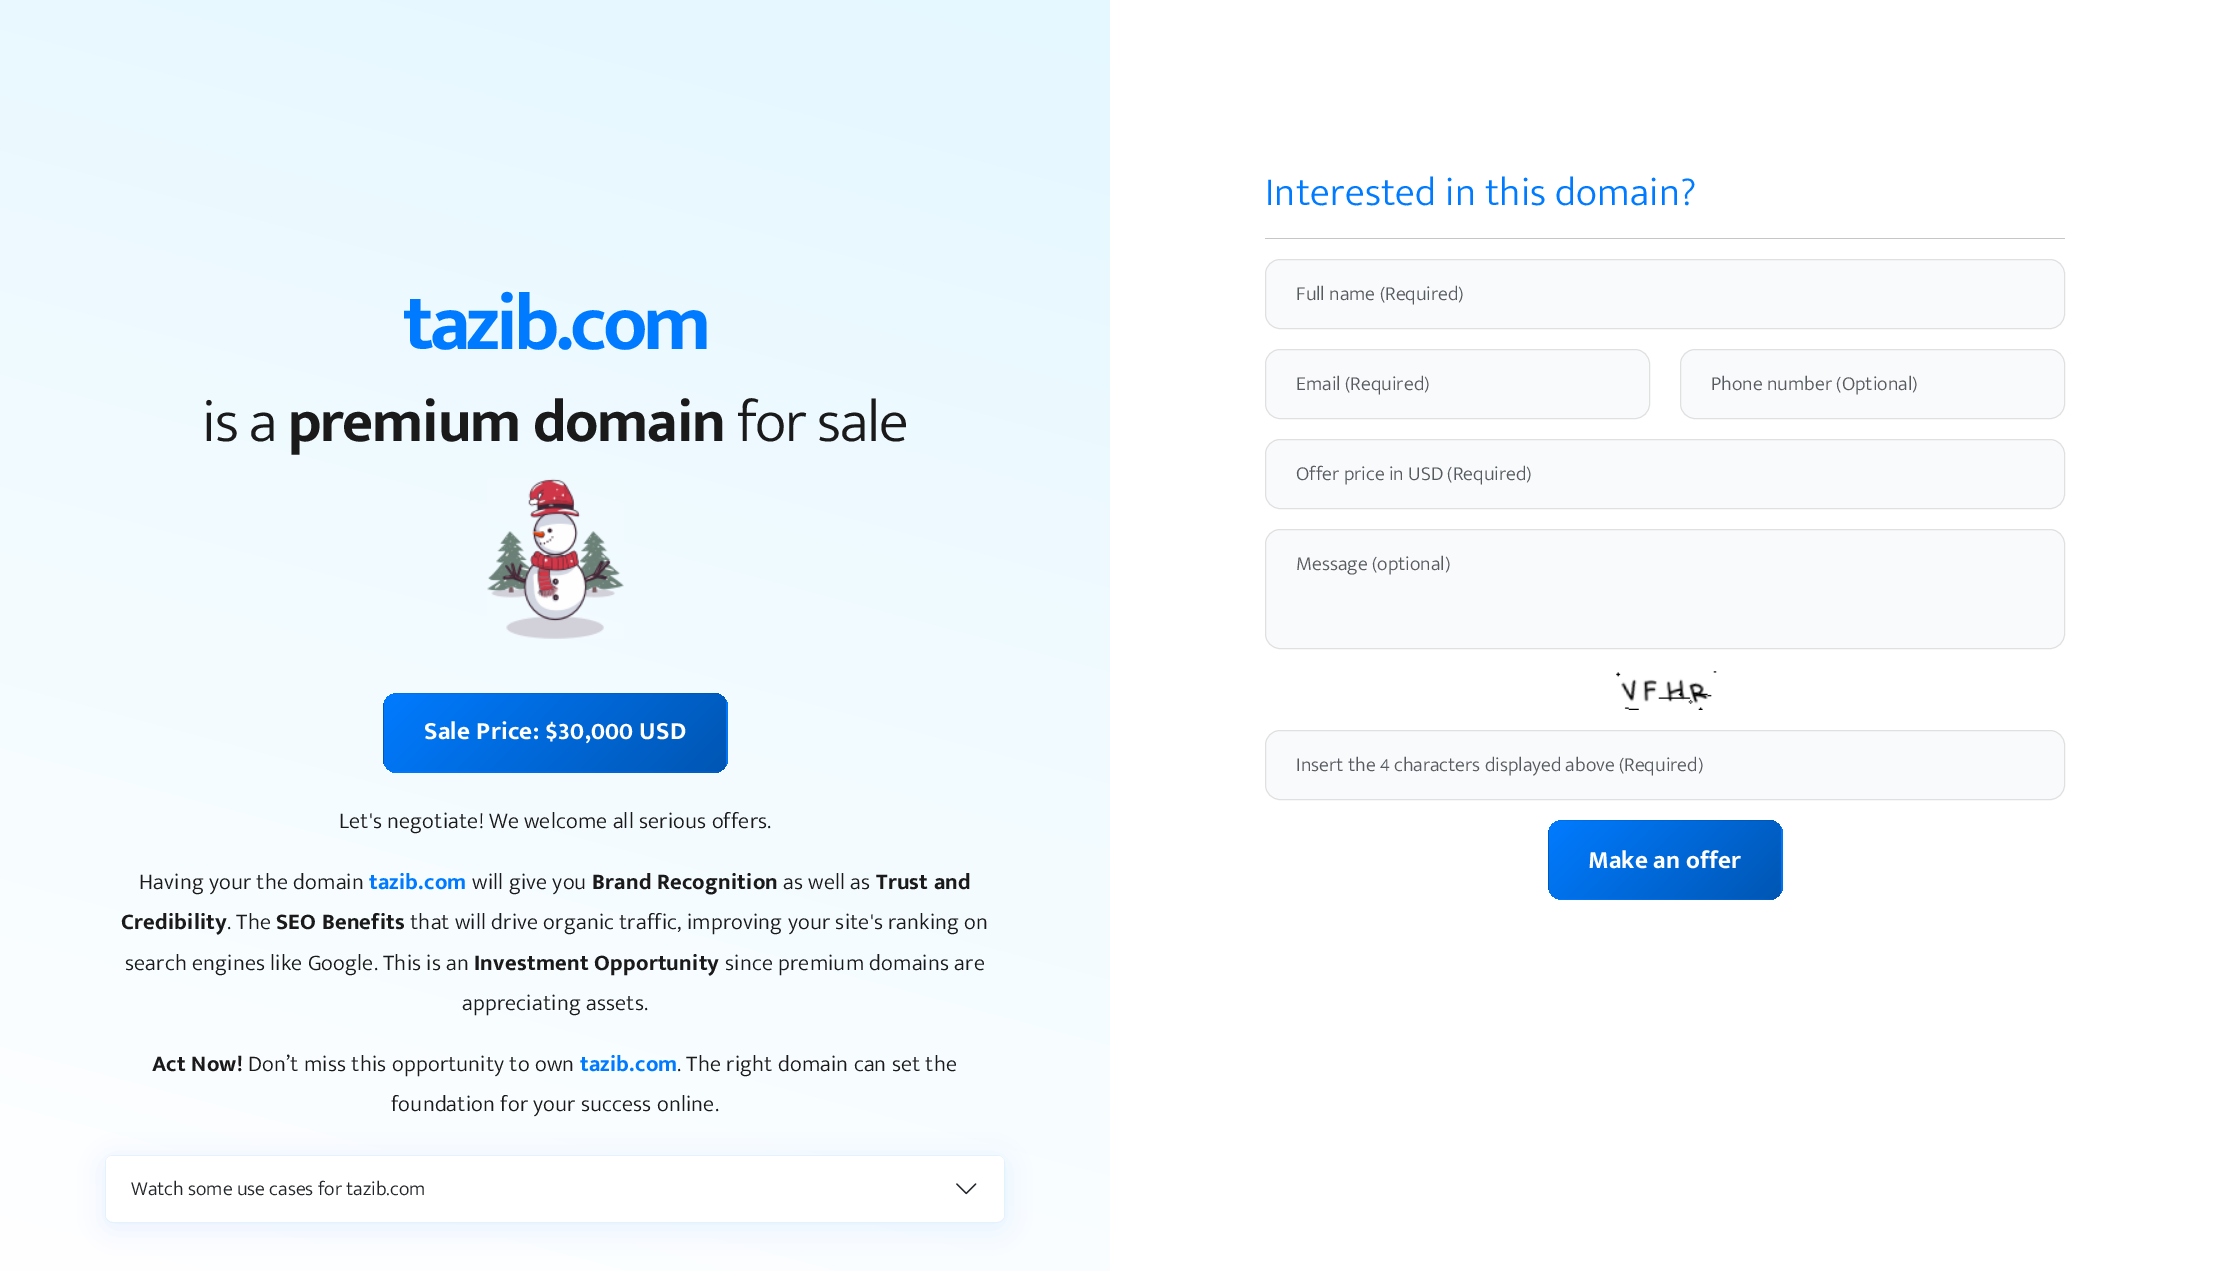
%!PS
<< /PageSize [2219 1271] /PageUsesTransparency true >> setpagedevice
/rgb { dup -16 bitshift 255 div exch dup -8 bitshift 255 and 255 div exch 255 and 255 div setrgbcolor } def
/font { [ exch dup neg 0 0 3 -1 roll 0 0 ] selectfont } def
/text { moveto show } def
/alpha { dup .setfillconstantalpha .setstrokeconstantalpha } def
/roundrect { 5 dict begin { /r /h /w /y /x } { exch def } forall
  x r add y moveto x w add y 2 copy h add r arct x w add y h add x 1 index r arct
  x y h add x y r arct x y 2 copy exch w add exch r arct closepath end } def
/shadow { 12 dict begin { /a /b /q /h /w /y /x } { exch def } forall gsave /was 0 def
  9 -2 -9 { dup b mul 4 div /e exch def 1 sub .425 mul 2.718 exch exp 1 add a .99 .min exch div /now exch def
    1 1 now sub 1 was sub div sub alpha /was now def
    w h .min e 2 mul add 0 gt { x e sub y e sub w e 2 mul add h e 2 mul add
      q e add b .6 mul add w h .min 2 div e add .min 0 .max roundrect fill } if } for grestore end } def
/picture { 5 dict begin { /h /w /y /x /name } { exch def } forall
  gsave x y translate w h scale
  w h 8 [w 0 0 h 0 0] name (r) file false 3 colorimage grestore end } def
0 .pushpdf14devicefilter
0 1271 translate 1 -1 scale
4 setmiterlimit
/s1 { /MuktaMahee-Light 20 font 16#212529 rgb } def
/s2 { /MuktaMahee-Light 20 font 16#575A5E rgb } def
/s3 { /MuktaMahee-Bold 25 font 16#FFFFFF rgb } def
16#FFFFFF rgb
0 0 2219 1271 rectfill
gsave 0 0 moveto 1110 0 lineto 1110 1271 lineto 0 1271 lineto closepath clip newpath
<< /ShadingType 2 /ColorSpace /DeviceRGB /Coords [751 -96 359 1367] /Extend [true true] /Function << /FunctionType 2 /Domain [0 1] /C0 [0.898 0.969 1] /C1 [1 1 1] /N 1 >> >> shfill grestore
/MuktaMahee-Bold 80 font
16#007BFF rgb
403 349 moveto -4 0 (tazib.com) ashow
/MuktaMahee-Light 60 font
16#1A1A1A rgb
202 441 moveto -1.25 0 (is a) ashow
/MuktaMahee-Bold 60 font
288 441 moveto -1.25 0 (premium domain) ashow
/MuktaMahee-Light 60 font
737 441 moveto -1.25 0 (for sale) ashow
(pic1.raw) 487 478 137 161 picture
gsave
383 693 345 80 15 roundrect clip newpath
gsave 393 693 moveto 726 693 lineto 726 694 lineto 393 694 lineto closepath clip newpath
<< /ShadingType 2 /ColorSpace /DeviceRGB /Coords [450 550 660 760] /Extend [true true] /Function << /FunctionType 2 /Domain [0 1] /C0 [0 0.482 1] /C1 [0 0.337 0.702] /N 1 >> >> shfill grestore
gsave 383 703 moveto 384 703 lineto 384 771 lineto 383 771 lineto closepath clip newpath
<< /ShadingType 2 /ColorSpace /DeviceRGB /Coords [108 628 318 838] /Extend [true true] /Function << /FunctionType 2 /Domain [0 1] /C0 [0 0.482 1] /C1 [0 0.337 0.702] /N 1 >> >> shfill grestore
gsave 384 694 moveto 726 694 lineto 726 771 lineto 384 771 lineto closepath clip newpath
<< /ShadingType 2 /ColorSpace /DeviceRGB /Coords [450 628 660 838] /Extend [true true] /Function << /FunctionType 2 /Domain [0 1] /C0 [0 0.482 1] /C1 [0 0.337 0.702] /N 1 >> >> shfill grestore
gsave 726 694 moveto 728 694 lineto 728 771 lineto 726 771 lineto closepath clip newpath
<< /ShadingType 2 /ColorSpace /DeviceRGB /Coords [793 628 1003 838] /Extend [true true] /Function << /FunctionType 2 /Domain [0 1] /C0 [0 0.482 1] /C1 [0 0.337 0.702] /N 1 >> >> shfill grestore
gsave 384 771 moveto 726 771 lineto 726 773 lineto 384 773 lineto closepath clip newpath
<< /ShadingType 2 /ColorSpace /DeviceRGB /Coords [450 705 660 915] /Extend [true true] /Function << /FunctionType 2 /Domain [0 1] /C0 [0 0.482 1] /C1 [0 0.337 0.702] /N 1 >> >> shfill grestore
grestore
/MuktaMahee-Bold 25 font
16#FFFFFF rgb
424 739 moveto 0.22 0 (Sale Price: $30,000 USD) ashow
/MuktaMahee-Light 22.5 font
16#1A1A1A rgb
339 828 moveto 0.22 0 (Let's negotiate! We welcome all serious offers.) ashow
139 889 moveto 0.22 0 (Having your the domain) ashow
/MuktaMahee-Bold 22.5 font
16#007BFF rgb
369 889 moveto 0.22 0 (tazib.com) ashow
/MuktaMahee-Light 22.5 font
16#1A1A1A rgb
472 889 moveto 0.22 0 (will give you) ashow
/MuktaMahee-Bold 22.5 font
592 889 moveto 0.22 0 (Brand Recognition) ashow
/MuktaMahee-Light 22.5 font
783 889 moveto 0.22 0 (as well as) ashow
/MuktaMahee-Bold 22.5 font
876 889 moveto 0.22 0 (Trust and) ashow
121 929 moveto 0.22 0 (Credibility) ashow
/MuktaMahee-Light 22.5 font
227 929 moveto 0.22 0 (. The) ashow
/MuktaMahee-Bold 22.5 font
276 929 moveto 0.22 0 (SEO Benefits) ashow
/MuktaMahee-Light 22.5 font
410 929 moveto 0.22 0 (that will drive organic traffic, improving your site's ranking on) ashow
125 970 moveto 0.22 0 (search engines like Google. This is an) ashow
/MuktaMahee-Bold 22.5 font
474 970 moveto 0.22 0 (Investment Opportunity) ashow
/MuktaMahee-Light 22.5 font
725 970 moveto 0.22 0 (since premium domains are) ashow
462 1010 moveto 0.22 0 (appreciating assets.) ashow
/MuktaMahee-Bold 22.5 font
152 1071 moveto 0.22 0 (Act Now!) ashow
/MuktaMahee-Light 22.5 font
248 1071 moveto 0.22 0 (Don’t miss this opportunity to own) ashow
/MuktaMahee-Bold 22.5 font
16#007BFF rgb
580 1071 moveto 0.22 0 (tazib.com) ashow
/MuktaMahee-Light 22.5 font
16#1A1A1A rgb
677 1071 moveto 0.22 0 (. The right domain can set the) ashow
391 1111 moveto 0.22 0 (foundation for your success online.) ashow
16#007BFF rgb
105 1160 900 68 8 12.5 0.08 shadow
0.96 alpha
16#FFFFFF rgb
105.5 1155.5 899 67 7.5 roundrect fill
1 alpha
16#E3F2FD rgb
105.5 1155.5 899 67 7.5 roundrect stroke
16#FFFFFF rgb
106 1156 898 65 6 roundrect fill
s1
(Watch some use cases for tazib.com) 131 1195 text
(pic2.raw) 956 1183 21 12 picture
/MuktaMahee-Light 40 font
16#007BFF rgb
1265 205 moveto 0.22 0 (Interested in this domain?) ashow
16#C6C6C6 rgb
1265 238 800 1 rectfill
16#F8FAFC rgb
1265.5 259.5 799 69 14.5 roundrect gsave fill grestore
16#E0E0E0 rgb
stroke
s2
(Full name \(Required\)) 1296 300 text
16#F8FAFC rgb
1265.5 349.5 384 69 14.5 roundrect gsave fill grestore
16#E0E0E0 rgb
stroke
s2
(Email \(Required\)) 1296 390 text
16#F8FAFC rgb
1680.5 349.5 384 69 14.5 roundrect gsave fill grestore
16#E0E0E0 rgb
stroke
s2
(Phone number \(Optional\)) 1711 390 text
16#F8FAFC rgb
1265.5 439.5 799 69 14.5 roundrect gsave fill grestore
16#E0E0E0 rgb
stroke
s2
(Offer price in USD \(Required\)) 1296 480 text
16#F8FAFC rgb
1265.5 529.5 799 119 14.5 roundrect gsave fill grestore
16#E0E0E0 rgb
stroke
s2
(Message \(optional\)) 1296 570 text
(pic3.raw) 1616 671 101 39 picture
16#F8FAFC rgb
1265.5 730.5 799 69 14.5 roundrect gsave fill grestore
16#E0E0E0 rgb
stroke
s2
(Insert the 4 characters displayed above \(Required\)) 1296 771 text
gsave
1548 820 235 80 15 roundrect clip newpath
gsave 1558 820 moveto 1781 820 lineto 1781 821 lineto 1558 821 lineto closepath clip newpath
<< /ShadingType 2 /ColorSpace /DeviceRGB /Coords [1588 705 1743 860] /Extend [true true] /Function << /FunctionType 2 /Domain [0 1] /C0 [0 0.482 1] /C1 [0 0.337 0.702] /N 1 >> >> shfill grestore
gsave 1548 830 moveto 1549 830 lineto 1549 890 lineto 1548 890 lineto closepath clip newpath
<< /ShadingType 2 /ColorSpace /DeviceRGB /Coords [1355 783 1510 938] /Extend [true true] /Function << /FunctionType 2 /Domain [0 1] /C0 [0 0.482 1] /C1 [0 0.337 0.702] /N 1 >> >> shfill grestore
gsave 1549 821 moveto 1781 821 lineto 1781 899 lineto 1549 899 lineto closepath clip newpath
<< /ShadingType 2 /ColorSpace /DeviceRGB /Coords [1588 783 1743 938] /Extend [true true] /Function << /FunctionType 2 /Domain [0 1] /C0 [0 0.482 1] /C1 [0 0.337 0.702] /N 1 >> >> shfill grestore
gsave 1781 821 moveto 1783 821 lineto 1783 899 lineto 1781 899 lineto closepath clip newpath
<< /ShadingType 2 /ColorSpace /DeviceRGB /Coords [1820 783 1975 938] /Extend [true true] /Function << /FunctionType 2 /Domain [0 1] /C0 [0 0.482 1] /C1 [0 0.337 0.702] /N 1 >> >> shfill grestore
gsave 1558 899 moveto 1781 899 lineto 1781 900 lineto 1558 900 lineto closepath clip newpath
<< /ShadingType 2 /ColorSpace /DeviceRGB /Coords [1588 860 1743 1015] /Extend [true true] /Function << /FunctionType 2 /Domain [0 1] /C0 [0 0.482 1] /C1 [0 0.337 0.702] /N 1 >> >> shfill grestore
grestore
s3
(Make an offer) 1588 868 text
.poppdf14devicefilter showpage
